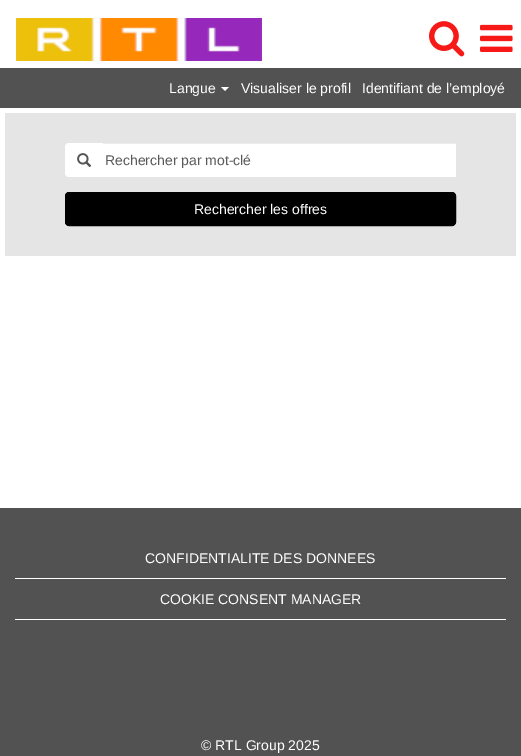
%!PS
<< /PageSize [521 756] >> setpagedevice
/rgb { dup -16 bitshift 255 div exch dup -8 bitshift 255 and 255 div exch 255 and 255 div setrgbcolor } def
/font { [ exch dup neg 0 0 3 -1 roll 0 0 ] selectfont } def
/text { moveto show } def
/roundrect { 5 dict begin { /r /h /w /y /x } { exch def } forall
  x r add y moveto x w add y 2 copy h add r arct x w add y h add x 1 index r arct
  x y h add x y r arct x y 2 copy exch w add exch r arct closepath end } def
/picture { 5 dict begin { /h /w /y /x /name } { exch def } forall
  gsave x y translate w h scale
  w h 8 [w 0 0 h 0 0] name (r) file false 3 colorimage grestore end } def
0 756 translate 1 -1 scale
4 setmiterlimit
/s1 { /LiberationSans-Regular 14 font 16#FFFFFF rgb } def
/s2 { /LiberationSans-Regular 14 font 16#595959 rgb } def
16#FFFFFF rgb
0 0 521 756 rectfill
(pic1.raw) 16 18 246 43 picture
(pic2.raw) 429 21 36 36 picture
(pic3.raw) 480 24 33 28 picture
16#525252 rgb
0 68 521 40 rectfill
s1
(Langue) 169 93 text
221 87 moveto 229 87 lineto 225 91 lineto closepath fill
(Visualiser le profil) 241 93 text
(Identifiant de l’employé) 362 93 text
16#E5E5E5 rgb
5 113 511 143 rectfill
16#FFFFFF rgb
69 143 moveto 103 143 lineto 103 177 lineto 69 177 lineto 67 177 65 175 65 173 curveto 65 147 lineto 65 145 67 143 69 143 curveto closepath fill
(pic4.raw) 77 153 15 14 picture
103 144 353 33 rectfill
16#ECECEC rgb
103 143 353 1 rectfill
s2
(Rechercher par mot-clé) 105 165 text
16#000000 rgb
65.5 192.5 390 33 3.5 roundrect gsave fill grestore
stroke
s1
(Rechercher les offres) 194 214 text
16#525252 rgb
0 508 521 248 rectfill
16#FFFFFF rgb
15 578 491 1 rectfill
(CONFIDENTIALITE DES DONNEES) 145 563 text
15 619 491 1 rectfill
(COOKIE CONSENT MANAGER) 160 604 text
(© RTL Group 2025) 201 750 text
showpage
